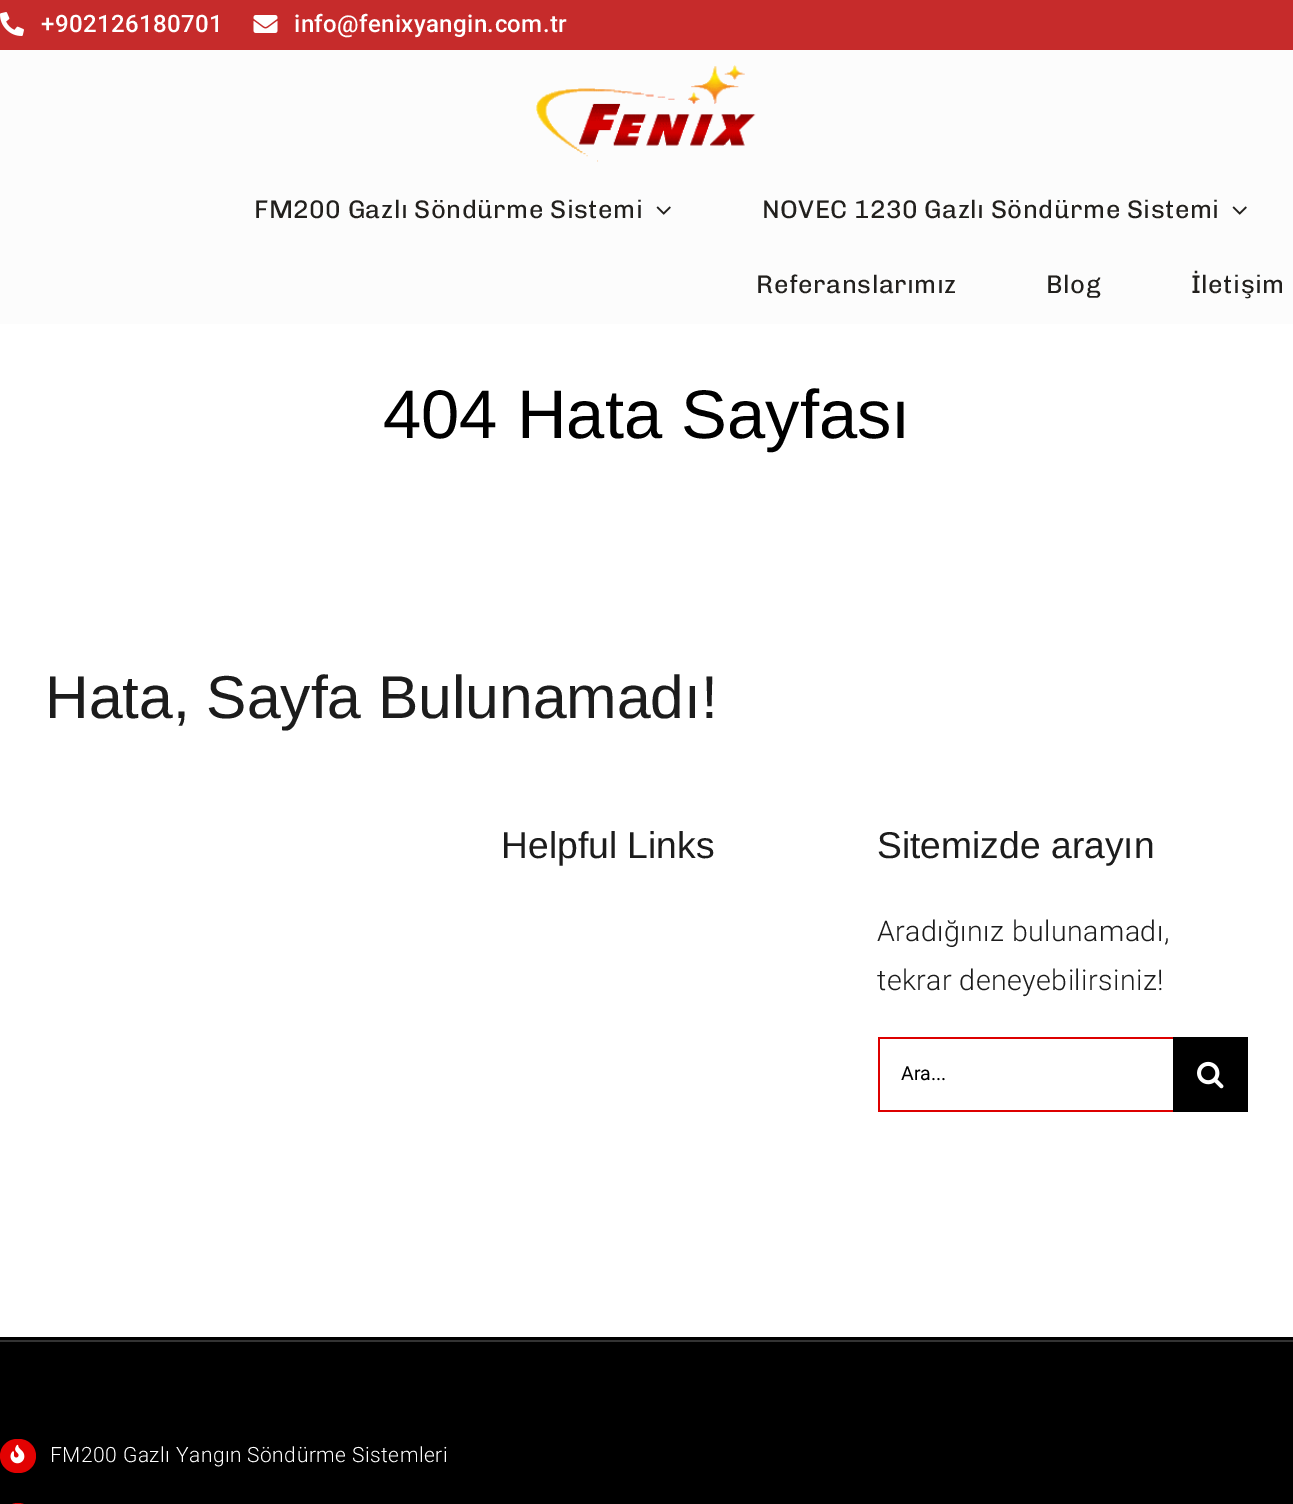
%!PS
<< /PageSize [1293 1504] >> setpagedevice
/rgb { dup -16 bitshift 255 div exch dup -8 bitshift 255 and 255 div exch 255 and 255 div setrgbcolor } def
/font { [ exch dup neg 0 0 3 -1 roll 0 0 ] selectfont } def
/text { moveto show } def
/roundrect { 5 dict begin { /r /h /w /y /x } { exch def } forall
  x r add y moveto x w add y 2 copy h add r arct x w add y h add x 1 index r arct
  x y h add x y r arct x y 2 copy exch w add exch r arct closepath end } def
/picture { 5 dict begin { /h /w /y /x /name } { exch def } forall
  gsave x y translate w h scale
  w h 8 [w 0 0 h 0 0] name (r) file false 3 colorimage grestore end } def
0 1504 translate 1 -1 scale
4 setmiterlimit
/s1 { /LiberationSans-Regular 68.75 font 16#000000 rgb } def
/s2 { /LiberationSans-Regular 60.5 font 16#1C1C1C rgb } def
/s3 { /LiberationSans-Regular 37.25 font 16#1C1C1C rgb } def
/s4 { /Roboto-Regular 19.5 font 16#000000 rgb } def
16#FFFFFF rgb
0 0 1293 1504 rectfill
16#C62B2B rgb
0 0 1293 50 rectfill
(pic1.raw) 0 12 24 24 picture
/Roboto-Medium 24 font
16#FFFFFF rgb
41 32 moveto 0.4 0 (+902126180701) ashow
(pic2.raw) 253 15 25 18 picture
294 32 moveto 0.4 0 (info@fenixyangin.com.tr) ashow
16#FCFCFC rgb
0 50 1293 274 rectfill
(pic3.raw) 536 65 220 97 picture
/Chivo-Medium 25.5 font
16#22201D rgb
254 218 moveto 0.4 0 (FM200 Gazlı Söndürme Sistemi) ashow
(pic4.raw) 656 206 15 9 picture
762 218 moveto 0.4 0 (NOVEC 1230 Gazlı Söndürme Sistemi) ashow
(pic4.raw) 1232 206 15 9 picture
756 293 moveto 0.4 0 (Referanslarımız) ashow
1046 293 moveto 0.4 0 (Blog) ashow
1191 293 moveto 0.4 0 (İletişim) ashow
s1
(404 Hata Sayfası) 383 438 text
s2
(Hata, Sayfa Bulunamadı!) 45 718 text
s3
(Helpful Links) 501 858 text
(Sitemizde arayın) 877 858 text
/Roboto-Light 28.5 font
877 941 moveto 0.45 0 (Aradığınız bulunamadı,) ashow
877 990 moveto 0.45 0 (tekrar deneyebilirsiniz!) ashow
16#DD0000 rgb
878 1037 295 2 rectfill
878 1110 295 2 rectfill
878 1037 2 75 rectfill
s4
(Ara...) 901 1080 text
1173 1037 75 75 rectfill
(pic5.raw) 1197 1061 27 28 picture
0 1337 1293 167 rectfill
16#333333 rgb
0 1340 1293 2 rectfill
16#E20202 rgb
0 1439 36 34 17 roundrect fill
(pic6.raw) 10 1444 15 20 picture
/Roboto-Light 21 font
16#FFFFFF rgb
50 1462 moveto 0.45 0 (FM200 Gazlı Yangın Söndürme Sistemleri) ashow
16#E20202 rgb
0 1503 36 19 18 roundrect fill
showpage
